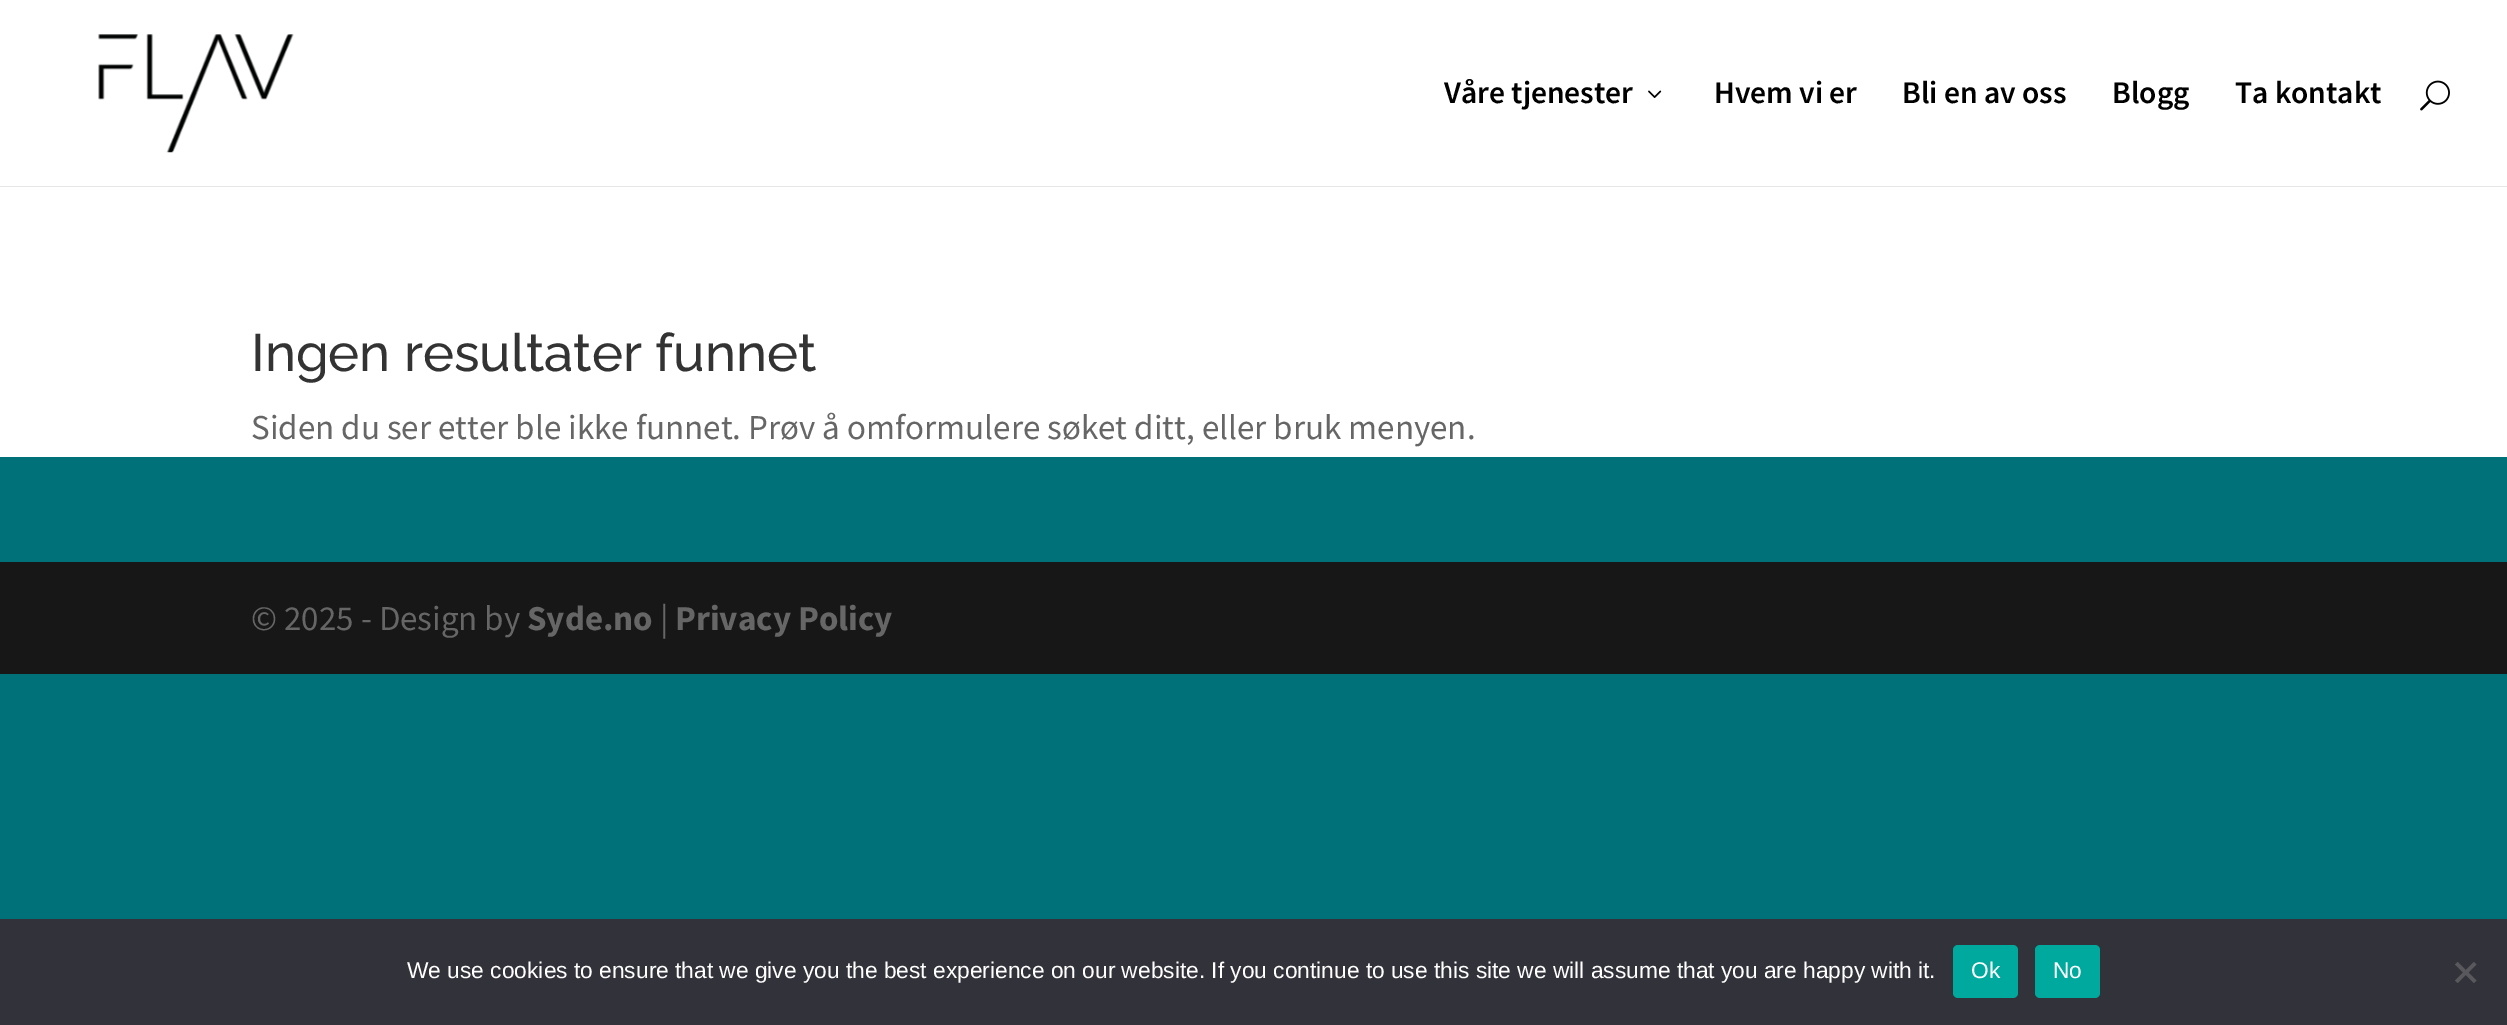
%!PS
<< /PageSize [2507 1025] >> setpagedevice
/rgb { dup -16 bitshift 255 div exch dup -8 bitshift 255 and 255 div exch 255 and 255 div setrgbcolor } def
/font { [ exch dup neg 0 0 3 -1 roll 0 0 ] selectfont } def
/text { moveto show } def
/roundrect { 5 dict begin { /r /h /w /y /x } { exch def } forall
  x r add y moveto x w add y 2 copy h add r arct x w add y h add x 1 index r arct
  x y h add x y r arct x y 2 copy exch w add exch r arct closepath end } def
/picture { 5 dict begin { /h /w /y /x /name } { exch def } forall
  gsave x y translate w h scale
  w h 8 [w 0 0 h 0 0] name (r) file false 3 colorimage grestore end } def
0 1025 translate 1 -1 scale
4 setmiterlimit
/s1 { /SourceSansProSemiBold-SemiBold 31.5 font 16#000000 rgb } def
/s2 { /Raleway-Thin 52.5 font 16#333333 rgb } def
/s3 { /SourceSansPro-Regular 35 font 16#666666 rgb } def
/s4 { /SourceSansPro-Bold 35 font 16#666666 rgb } def
/s5 { /LiberationSans-Regular 22.75 font 16#FFFFFF rgb } def
16#007179 rgb
0 0 2507 1025 rectfill
16#E6E6E6 rgb
0 186 moveto 0 187 lineto 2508 187 lineto 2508 2 lineto 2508 186 lineto closepath fill
16#FFFFFF rgb
0 0 2507 186 rectfill
(pic1.raw) 98 34 196 119 picture
s1
(Våre tjenester) 1444 103 text
(pic2.raw) 1648 90 14 8 picture
(Hvem vi er) 1714 103 text
(Bli en av oss) 1902 103 text
(Blogg) 2112 103 text
(Ta kontakt) 2235 103 text
(pic3.raw) 2420 80 30 31 picture
16#FFFFFF rgb
0 187 2507 270 rectfill
s2
(Ingen resultater funnet) 251 371 text
s3
(Siden du ser etter ble ikke funnet. Prøv å omformulere søket ditt, eller bruk menyen.) 251 439 text
16#171717 rgb
0 562 2507 112 rectfill
s3
(© 2025 - Design by) 251 630 text
s4
(Syde.no) 527 630 text
s3
(|) 660 630 text
s4
(Privacy Policy) 675 630 text
16#32323A rgb
0 919 2507 106 rectfill
s5
(We use cookies to ensure that we give you the best experience on our website. If you continue to use this site we will assume that you are happy with it.) 407 978 text
16#00A99D rgb
1953 945 65 53 5 roundrect fill
s5
(Ok) 1971 978 text
16#00A99D rgb
2035 945 65 53 5 roundrect fill
s5
(No) 2053 978 text
16#59595D rgb
2474 962 moveto 2476.5 964.5 lineto 2457.5 983 lineto 2455 980.5 lineto closepath fill
2455 964.5 moveto 2457.5 962 lineto 2476.5 980.5 lineto 2474 983 lineto closepath fill
showpage
